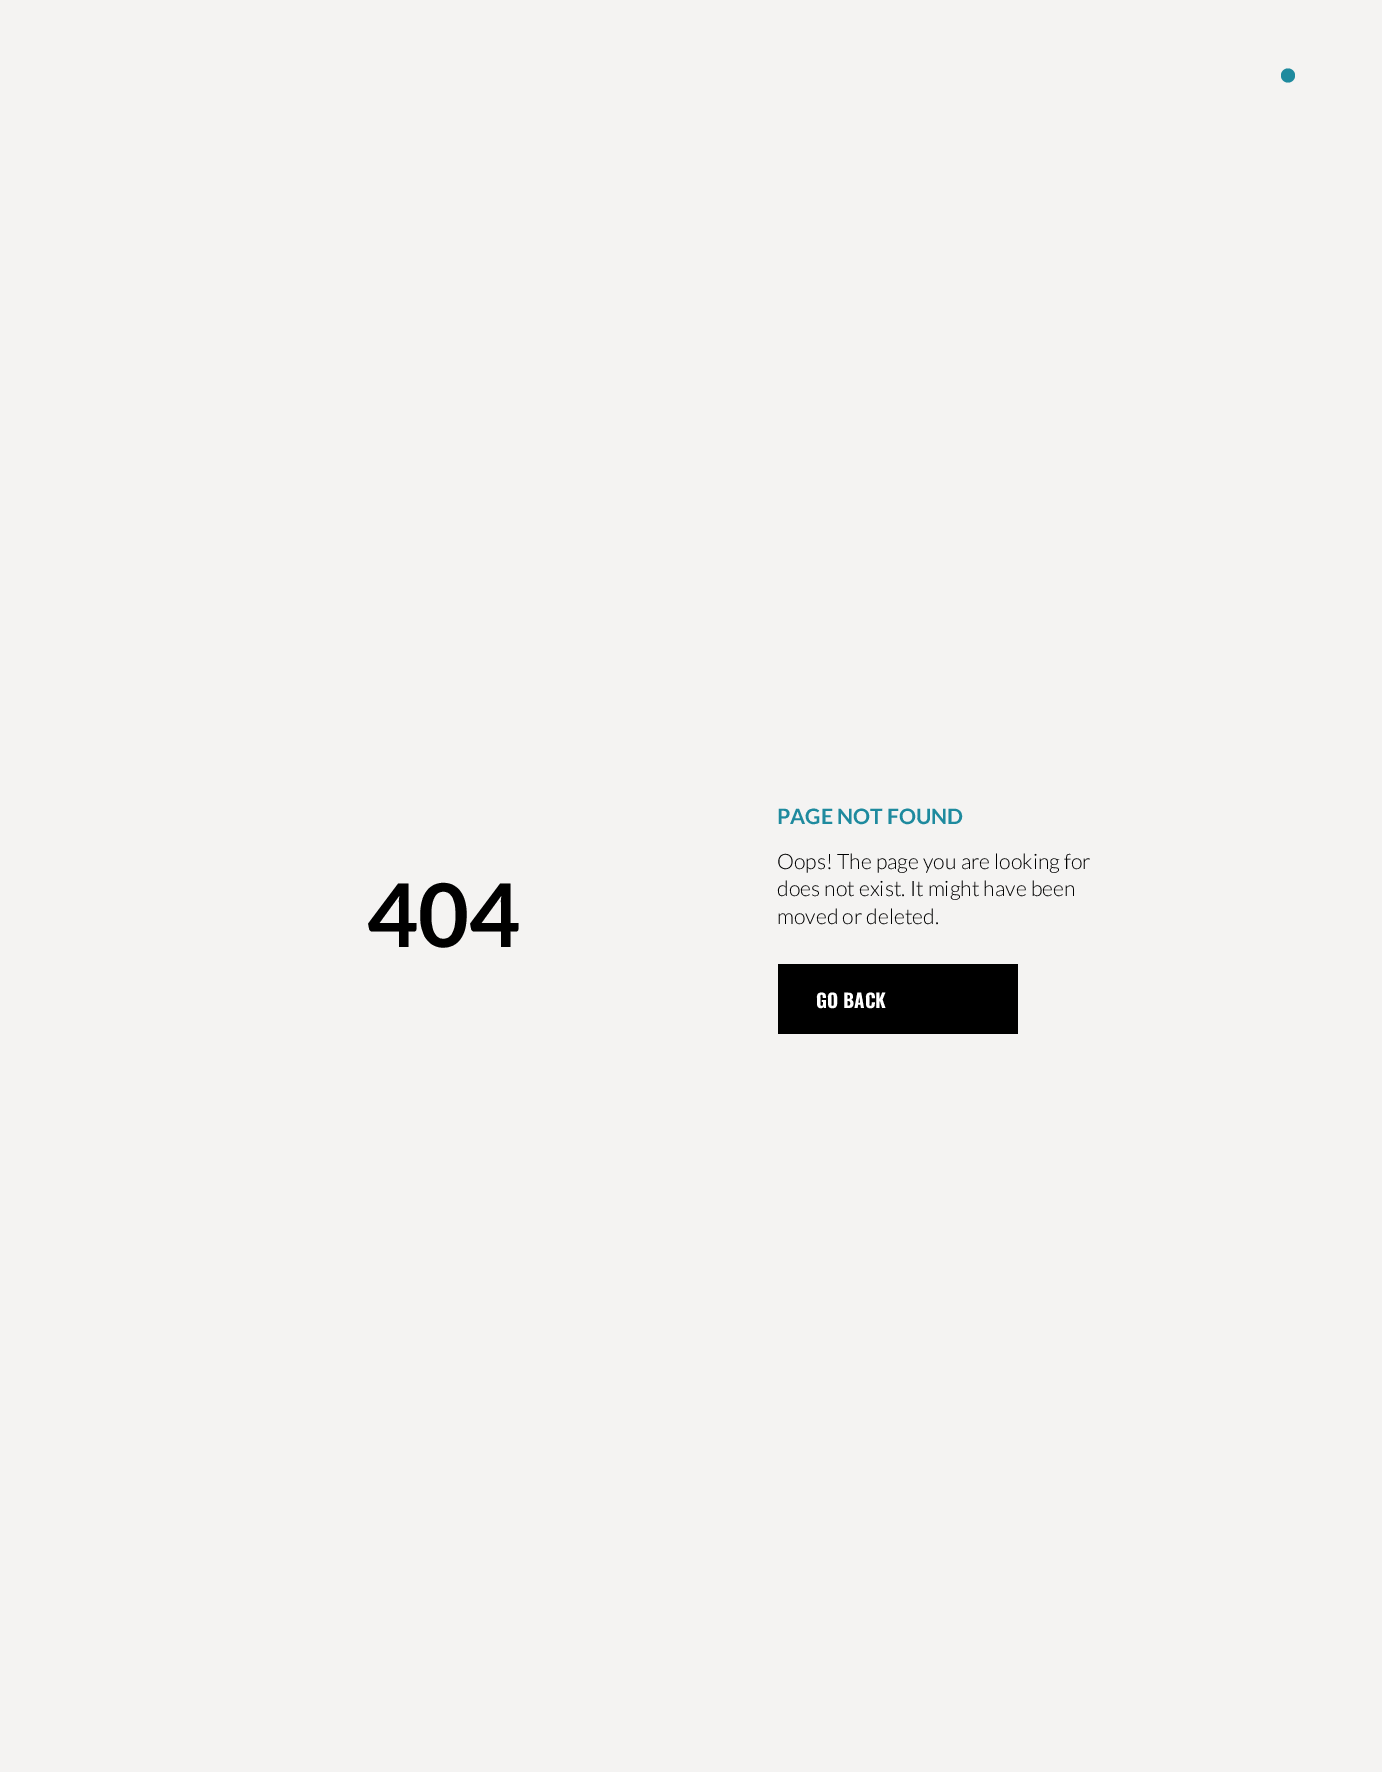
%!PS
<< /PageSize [1382 1772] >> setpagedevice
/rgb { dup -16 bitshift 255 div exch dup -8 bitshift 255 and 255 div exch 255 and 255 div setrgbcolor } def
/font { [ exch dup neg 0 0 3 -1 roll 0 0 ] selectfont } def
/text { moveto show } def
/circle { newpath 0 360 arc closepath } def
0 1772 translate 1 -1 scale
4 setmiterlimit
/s1 { /Lato-Bold 88 font 16#000000 rgb } def
/s2 { /Lato-Bold 21.25 font 16#1E8A9E rgb } def
/s3 { /Lato-Light 21.25 font 16#000000 rgb } def
/s4 { /Oswald-Bold 19 font 16#FFFFFF rgb } def
16#F4F3F2 rgb
0 0 1382 1772 rectfill
16#1E8A9E rgb
1288 75.5 7 circle fill
s1
(404) 367 947 text
s2
(PAGE NOT FOUND) 777 824 text
s3
(Oops! The page you are looking for) 777 869 text
(does not exist. It might have been) 777 896 text
(moved or deleted.) 777 924 text
778 964 240 70 rectfill
s4
(GO BACK) 816 1008 text
showpage
